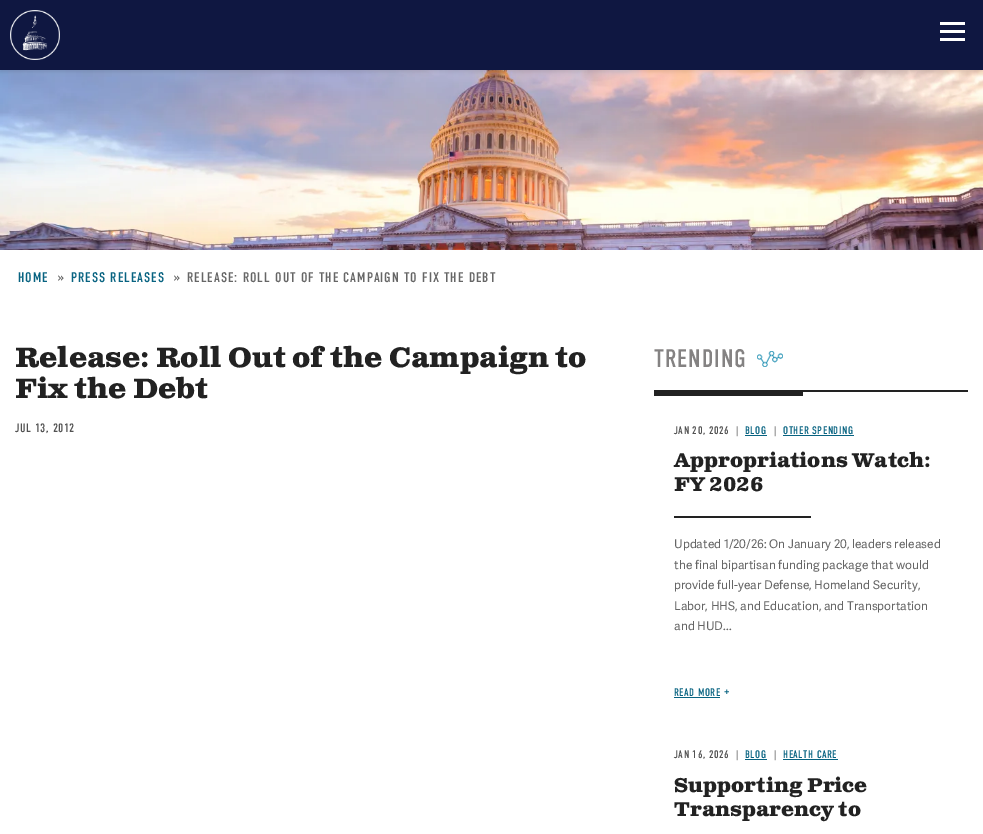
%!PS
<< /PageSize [983 834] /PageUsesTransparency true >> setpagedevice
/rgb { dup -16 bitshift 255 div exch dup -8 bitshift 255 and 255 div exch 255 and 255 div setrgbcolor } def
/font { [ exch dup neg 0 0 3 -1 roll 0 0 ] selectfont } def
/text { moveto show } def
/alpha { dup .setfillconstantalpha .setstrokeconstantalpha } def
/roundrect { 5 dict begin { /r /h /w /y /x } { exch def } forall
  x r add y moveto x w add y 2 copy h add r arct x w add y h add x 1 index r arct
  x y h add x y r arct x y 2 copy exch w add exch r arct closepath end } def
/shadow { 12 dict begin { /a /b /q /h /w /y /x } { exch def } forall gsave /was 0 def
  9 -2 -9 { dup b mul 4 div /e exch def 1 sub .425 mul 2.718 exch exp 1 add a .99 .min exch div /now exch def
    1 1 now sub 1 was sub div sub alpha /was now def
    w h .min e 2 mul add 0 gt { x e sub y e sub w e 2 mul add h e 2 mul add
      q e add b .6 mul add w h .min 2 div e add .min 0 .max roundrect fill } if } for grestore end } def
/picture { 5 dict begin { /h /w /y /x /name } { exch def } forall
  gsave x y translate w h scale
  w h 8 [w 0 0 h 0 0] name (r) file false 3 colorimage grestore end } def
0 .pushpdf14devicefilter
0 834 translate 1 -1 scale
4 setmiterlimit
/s1 { /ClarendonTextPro-Bold 28 font 16#222222 rgb } def
/s2 { /ClarendonTextPro-Bold 20 font 16#222222 rgb } def
/s3 { /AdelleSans-Regular 12 font 16#666666 rgb } def
16#FFFFFF rgb
0 0 983 834 rectfill
(pic2.raw) 0 70 983 180 picture
16#222222 rgb
0 2 983 70 0 1.5 0.1 shadow
16#0F1741 rgb
0 0 983 70 rectfill
(pic1.raw) 10 10 50 50 picture
16#FFFFFF rgb
940 30 25 3 rectfill
940 22 25 3 rectfill
940 38 25 3 rectfill
/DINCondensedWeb-Regular 14 font
16#086381 rgb
18 282 moveto 1 0 (HOME) ashow
16#666666 rgb
58 282 moveto 1 0 (») ashow
16#086381 rgb
71 282 moveto 1 0 (PRESS RELEASES) ashow
16#666666 rgb
174 282 moveto 1 0 (») ashow
187 282 moveto 1 0 (RELEASE: ROLL OUT OF THE CAMPAIGN TO FIX THE DEBT) ashow
s1
(Release: Roll Out of the Campaign to) 15 367 text
(Fix the Debt) 15 398 text
/DINCondensedWeb-Regular 12.25 font
16#525252 rgb
15 432 moveto 0.5 0 (JUL 13, 2012) ashow
16#222222 rgb
654 390 314 2 rectfill
654 392 149 4 rectfill
/DINCondensedWeb-Regular 25.5 font
16#848282 rgb
654 367 moveto 1 0 (TRENDING) ashow
(pic3.raw) 757 351 26 16 picture
/DINCondensedWeb-Regular 11 font
16#525252 rgb
674 434 moveto 0.5 0 (JAN 20, 2026) ashow
16#666666 rgb
736 434 moveto 0.5 0 (|) ashow
16#086381 rgb
745 434 moveto 0.5 0 (BLOG) ashow
745 435 22 1 rectfill
16#666666 rgb
774 434 moveto 0.5 0 (|) ashow
16#086381 rgb
783 434 moveto 0.5 0 (OTHER SPENDING) ashow
783 435 71 1 rectfill
s2
(Appropriations Watch:) 674 467 text
(FY 2026) 674 491 text
674 516 137 2 rectfill
s3
(Updated 1/20/26: On January 20, leaders released) 674 548 text
(the final bipartisan funding package that would) 674 569 text
(provide full-year Defense, Homeland Security,) 674 589 text
(Labor, HHS, and Education, and Transportation) 674 610 text
(and HUD...) 674 630 text
/DINCondensedWeb-Regular 11 font
16#086381 rgb
674 696 moveto 0.5 0 (READ MORE) ashow
674 697 46 1 rectfill
724 695 moveto 0.5 0 (+) ashow
16#525252 rgb
674 758 moveto 0.5 0 (JAN 16, 2026) ashow
16#666666 rgb
736 758 moveto 0.5 0 (|) ashow
16#086381 rgb
745 758 moveto 0.5 0 (BLOG) ashow
745 759 22 1 rectfill
16#666666 rgb
774 758 moveto 0.5 0 (|) ashow
16#086381 rgb
783 758 moveto 0.5 0 (HEALTH CARE) ashow
783 759 55 1 rectfill
s2
(Supporting Price) 674 792 text
(Transparency to) 674 816 text
.poppdf14devicefilter showpage
